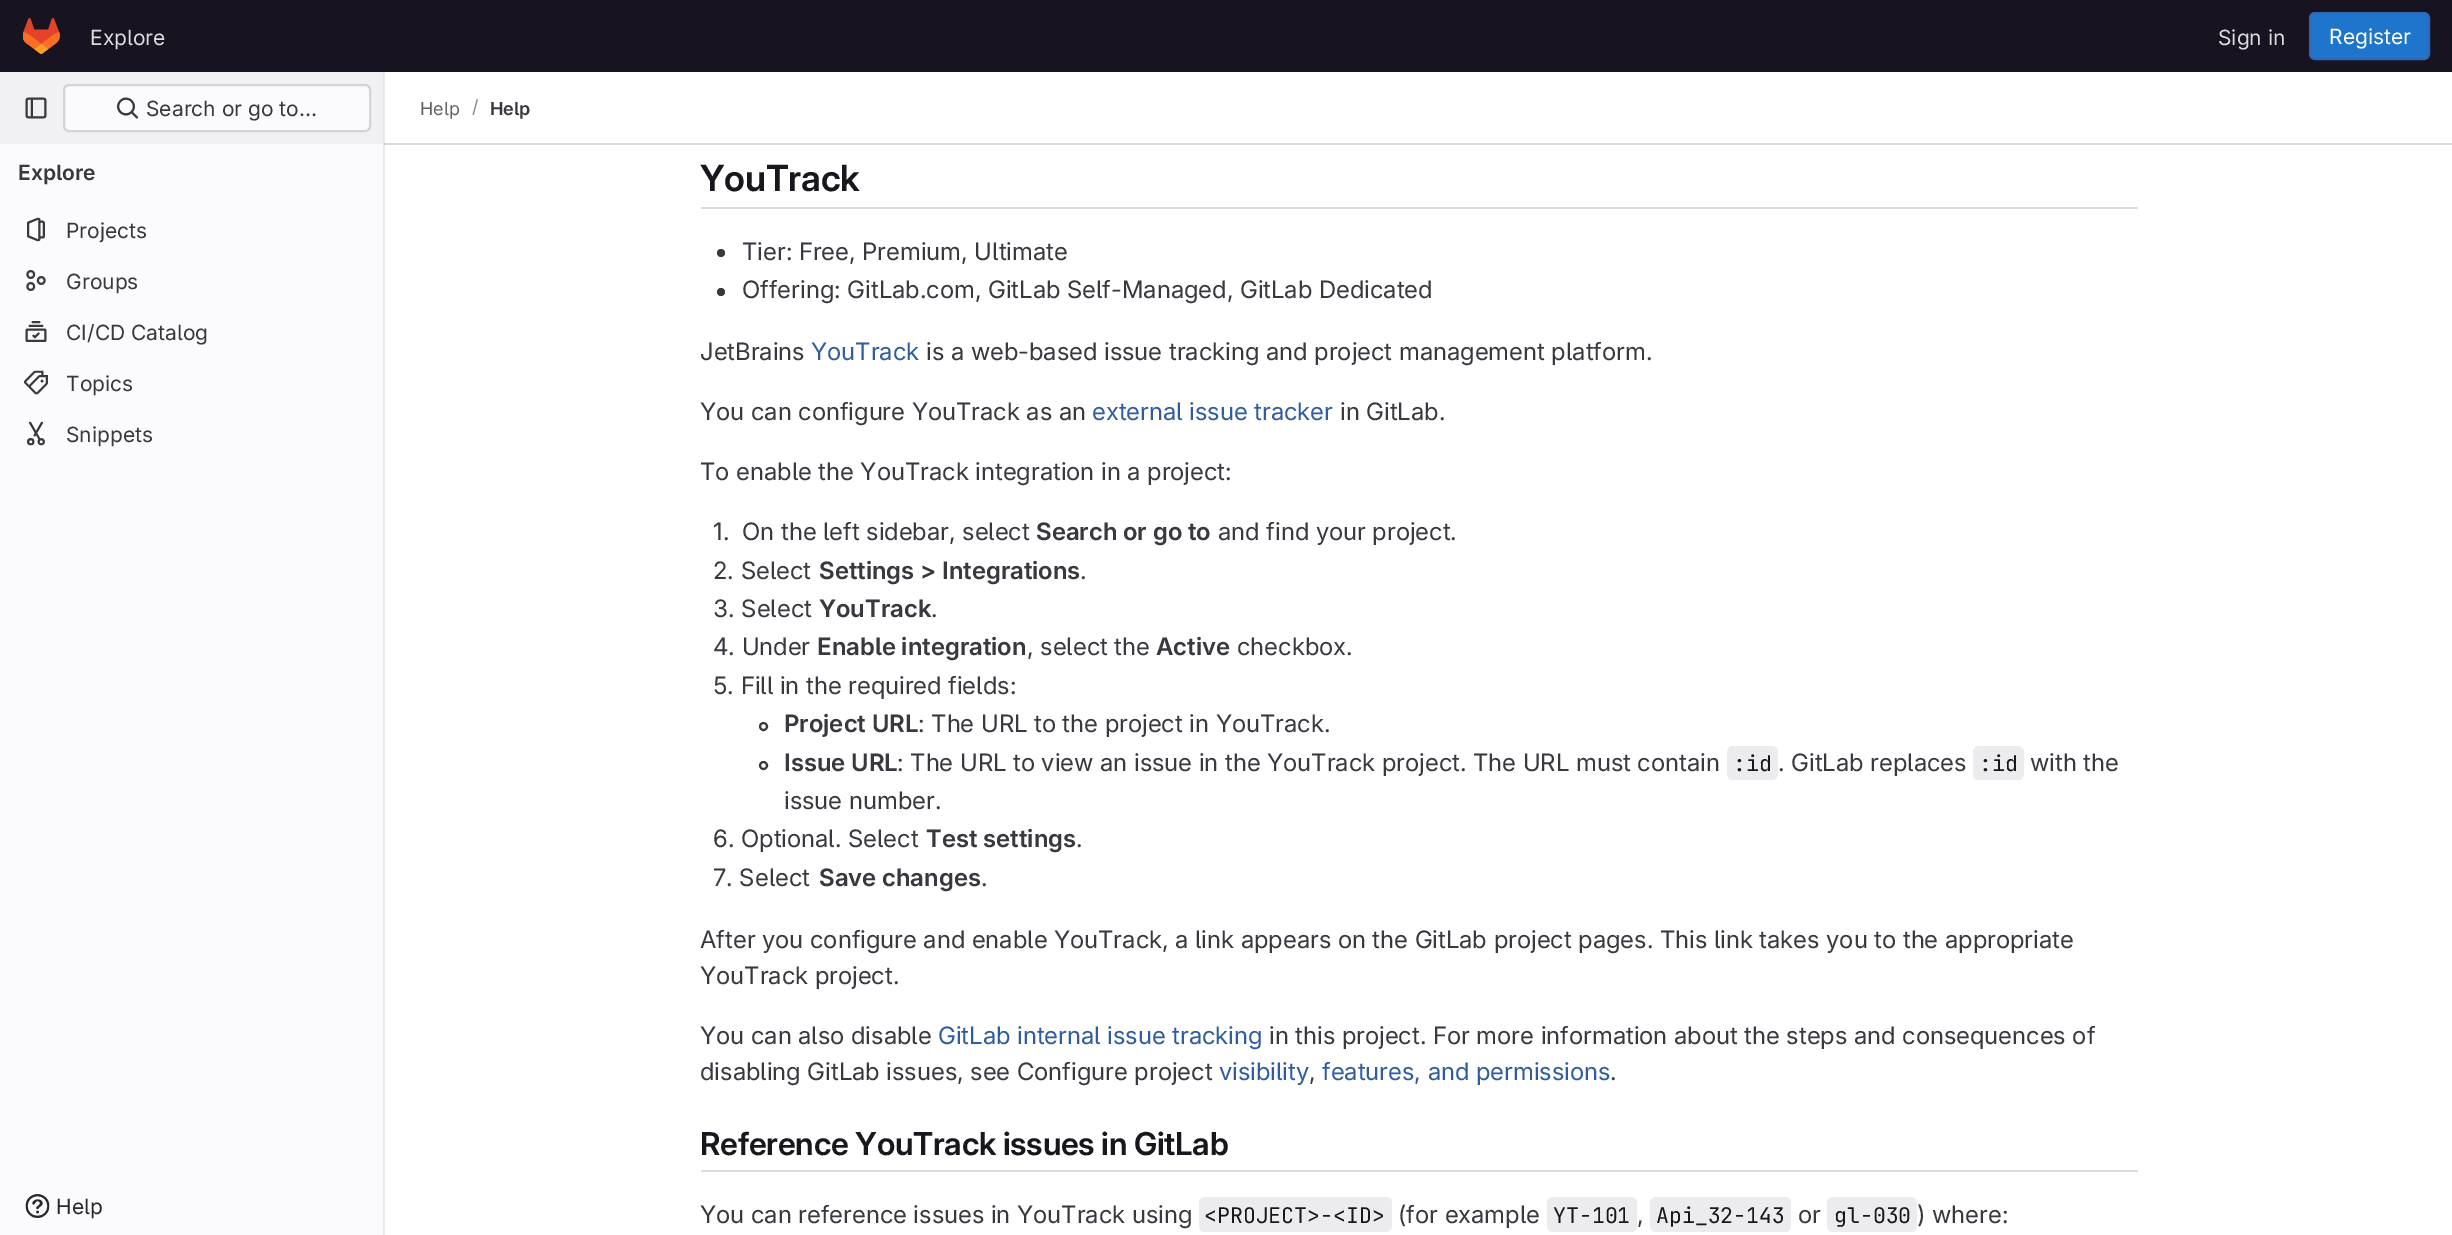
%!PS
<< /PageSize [2452 1235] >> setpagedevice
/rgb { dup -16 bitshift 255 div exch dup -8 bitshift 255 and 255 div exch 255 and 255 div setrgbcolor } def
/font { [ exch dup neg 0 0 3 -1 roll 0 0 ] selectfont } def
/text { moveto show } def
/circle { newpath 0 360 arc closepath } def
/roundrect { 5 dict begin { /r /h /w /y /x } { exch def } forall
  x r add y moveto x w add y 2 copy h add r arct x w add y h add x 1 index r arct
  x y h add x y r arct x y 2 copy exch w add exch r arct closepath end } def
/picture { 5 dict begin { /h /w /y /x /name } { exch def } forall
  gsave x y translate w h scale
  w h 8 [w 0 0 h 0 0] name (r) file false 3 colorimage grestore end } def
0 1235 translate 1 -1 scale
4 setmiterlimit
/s1 { /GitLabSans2-Regular 21 font 16#DCDCDE rgb } def
/s2 { /GitLabSans2-Regular 21 font 16#FFFFFF rgb } def
/s3 { /GitLabSans2-Regular 21 font 16#3A383F rgb } def
/s4 { /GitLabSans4-SemiBold 21 font 16#3A383F rgb } def
/s5 { /GitLabSans2-Regular 21 font 16#28272D rgb } def
/s6 { /GitLabSans2-Regular 18 font 16#626168 rgb } def
/s7 { /GitLabSans2-Regular 18 font 16#89888D rgb } def
/s8 { /GitLabSans4-SemiBold 18 font 16#3A383F rgb } def
/s9 { /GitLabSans-Regular 24 font 16#3A383F rgb } def
/s10 { /GitLabSans-Regular 24 font 16#2F5CA0 rgb } def
/s11 { /GitLabSans2-SemiBold 24 font 16#3A383F rgb } def
/s12 { /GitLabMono-Regular 21.5 font 16#18171D rgb } def
16#FFFFFF rgb
0 0 2452 1235 rectfill
16#EBEBEB rgb
384 72 1 1163 rectfill
16#171321 rgb
0 0 2452 72 rectfill
(pic1.raw) 23 18 37 36 picture
s1
(Explore) 90 45 text
(Sign in) 2218 45 text
16#1F75CB rgb
2310 13 119 46 5 roundrect gsave fill grestore
16#2F68B4 rgb
2 setlinewidth
stroke
s2
(Register) 2329 44 text
16#FBFAFD rgb
0 144 383 1091 rectfill
16#E7E6E9 rgb
383 72 1 1163 rectfill
16#F1F0F3 rgb
0 72 383 72 rectfill
(pic2.raw) 25 97 22 22 picture
16#FBFAFD rgb
64 85 306 46 5 roundrect gsave fill grestore
16#D4D3D5 rgb
stroke
(pic3.raw) 117 97 21 22 picture
s3
(Search or go to…) 146 116 text
s4
(Explore) 18 180 text
(pic4.raw) 27 217 18 25 picture
s3
(Projects) 66 238 text
(pic5.raw) 26 270 20 21 picture
(Groups) 66 289 text
(pic6.raw) 25 321 22 21 picture
(CI/CD Catalog) 66 340 text
(pic7.raw) 24 370 24 25 picture
(Topics) 66 391 text
(pic8.raw) 27 421 18 25 picture
(Snippets) 66 442 text
(pic9.raw) 25 1194 25 24 picture
s5
(Help) 56 1214 text
16#DCDCDE rgb
384 143 2068 2 rectfill
16#CBCBCD rgb
384 143 1 2 rectfill
s6
(Help) 420 115 text
s7
(/) 472 113 text
s8
(Help) 490 115 text
16#DCDCDE rgb
701 207 1437 2 rectfill
/GitLabSans-SemiBold 36 font
16#18171D rgb
700 191 moveto -0.25 0 (YouTrack) ashow
16#3A383F rgb
721 253 4 circle fill
s9
(Tier: Free, Premium, Ultimate) 742 260 text
721 292 4 circle fill
(Offering: GitLab.com, GitLab Self-Managed, GitLab Dedicated) 742 298 text
(JetBrains) 700 360 text
s10
(YouTrack) 811 360 text
s9
(is a web-based issue tracking and project management platform.) 926 360 text
(You can configure YouTrack as an) 700 420 text
s10
(external issue tracker) 1092 420 text
s9
(in GitLab.) 1340 420 text
(To enable the YouTrack integration in a project:) 700 480 text
(1.) 713 540 text
(On the left sidebar, select) 742 540 text
s11
(Search or go to) 1036 540 text
s9
(and find your project.) 1218 540 text
(2. Select) 713 579 text
s11
(Settings > Integrations) 819 579 text
s9
(.) 1080 579 text
(3. Select) 713 617 text
s11
(YouTrack) 819 617 text
s9
(.) 931 617 text
(4. Under) 713 655 text
s11
(Enable integration) 817 655 text
s9
(, select the) 1027 655 text
s11
(Active) 1156 655 text
s9
(checkbox.) 1237 655 text
(5. Fill in the required fields:) 713 694 text
763.5 726.5 3.5 circle stroke
s11
(Project URL) 784 732 text
s9
(: The URL to the project in YouTrack.) 918 732 text
763.5 765.5 3.5 circle stroke
s11
(Issue URL) 784 771 text
s9
(: The URL to view an issue in the YouTrack project. The URL must contain) 897 771 text
16#ECECEF rgb
1727 746 51 34 6 roundrect fill
s12
(:id) 1733 771 text
s9
(. GitLab replaces) 1778 771 text
16#ECECEF rgb
1973 746 51 34 6 roundrect fill
s12
(:id) 1979 771 text
s9
(with the) 2030 771 text
(issue number.) 784 809 text
(6. Optional. Select) 713 847 text
s11
(Test settings) 926 847 text
s9
(.) 1076 847 text
(7. Select) 713 886 text
s11
(Save changes) 819 886 text
s9
(.) 981 886 text
(After you configure and enable YouTrack, a link appears on the GitLab project pages. This link takes you to the appropriate) 700 948 text
(YouTrack project.) 700 984 text
(You can also disable) 700 1044 text
s10
(GitLab internal issue tracking) 938 1044 text
s9
(in this project. For more information about the steps and consequences of) 1269 1044 text
(disabling GitLab issues, see Configure project) 700 1080 text
s10
(visibility) 1219 1080 text
s9
(,) 1309 1080 text
s10
(features, and permissions) 1322 1080 text
s9
(.) 1610 1080 text
16#DCDCDE rgb
701 1170 1437 2 rectfill
/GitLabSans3-SemiBold 31.5 font
16#18171D rgb
700 1155 moveto -0.3 0 (Reference YouTrack issues in GitLab) ashow
s9
(You can reference issues in YouTrack using) 700 1223 text
16#ECECEF rgb
1199 1197 193 35 6 roundrect fill
s12
(<PROJECT>-<ID>) 1204 1223 text
s9
(\(for example) 1398 1223 text
16#ECECEF rgb
1547 1197 90 35 6 roundrect fill
s12
(YT-101) 1553 1223 text
s9
(,) 1637 1223 text
16#ECECEF rgb
1650 1197 141 35 6 roundrect fill
s12
(Api_32-143) 1656 1223 text
s9
(or) 1798 1223 text
16#ECECEF rgb
1827 1197 90 35 6 roundrect fill
s12
(gl-030) 1834 1223 text
s9
(\) where:) 1917 1223 text
showpage
